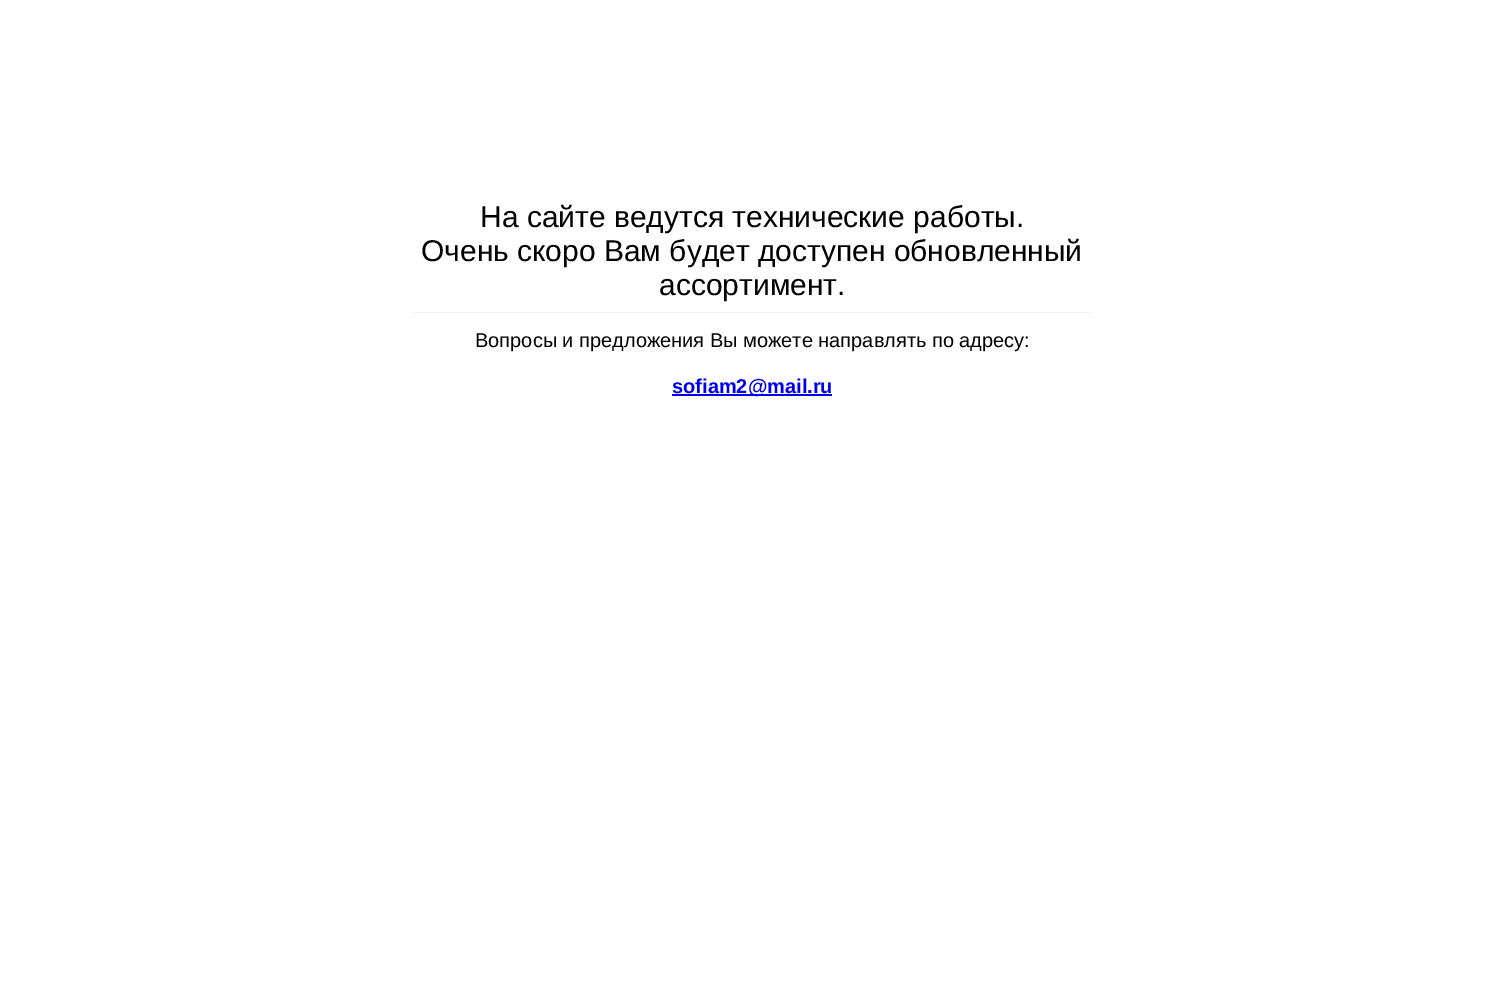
%!PS
<< /PageSize [1504 982] >> setpagedevice
/rgb { dup -16 bitshift 255 div exch dup -8 bitshift 255 and 255 div exch 255 and 255 div setrgbcolor } def
/font { [ exch dup neg 0 0 3 -1 roll 0 0 ] selectfont } def
/text { moveto show } def
0 982 translate 1 -1 scale
4 setmiterlimit
/s1 { /LiberationSans-Regular 30 font 16#000000 rgb } def
/s2 { /LiberationSans-Regular 20 font 16#000000 rgb } def
/s3 { /LiberationSans-Bold 20 font 16#0000EE rgb } def
16#FFFFFF rgb
0 0 1504 982 rectfill
s1
(На сайте ведутся технические работы.) 480 227 text
(Очень скоро Вам будет доступен обновленный) 421 261 text
(ассортимент.) 659 295 text
16#F2F2F2 rgb
412 312 680 1 rectfill
s2
(Вопросы и предложения Вы можете направлять по адресу:) 475 347 text
16#0000EE rgb
672 394 160 2 rectfill
s3
(sofiam2@mail.ru) 672 393 text
showpage
